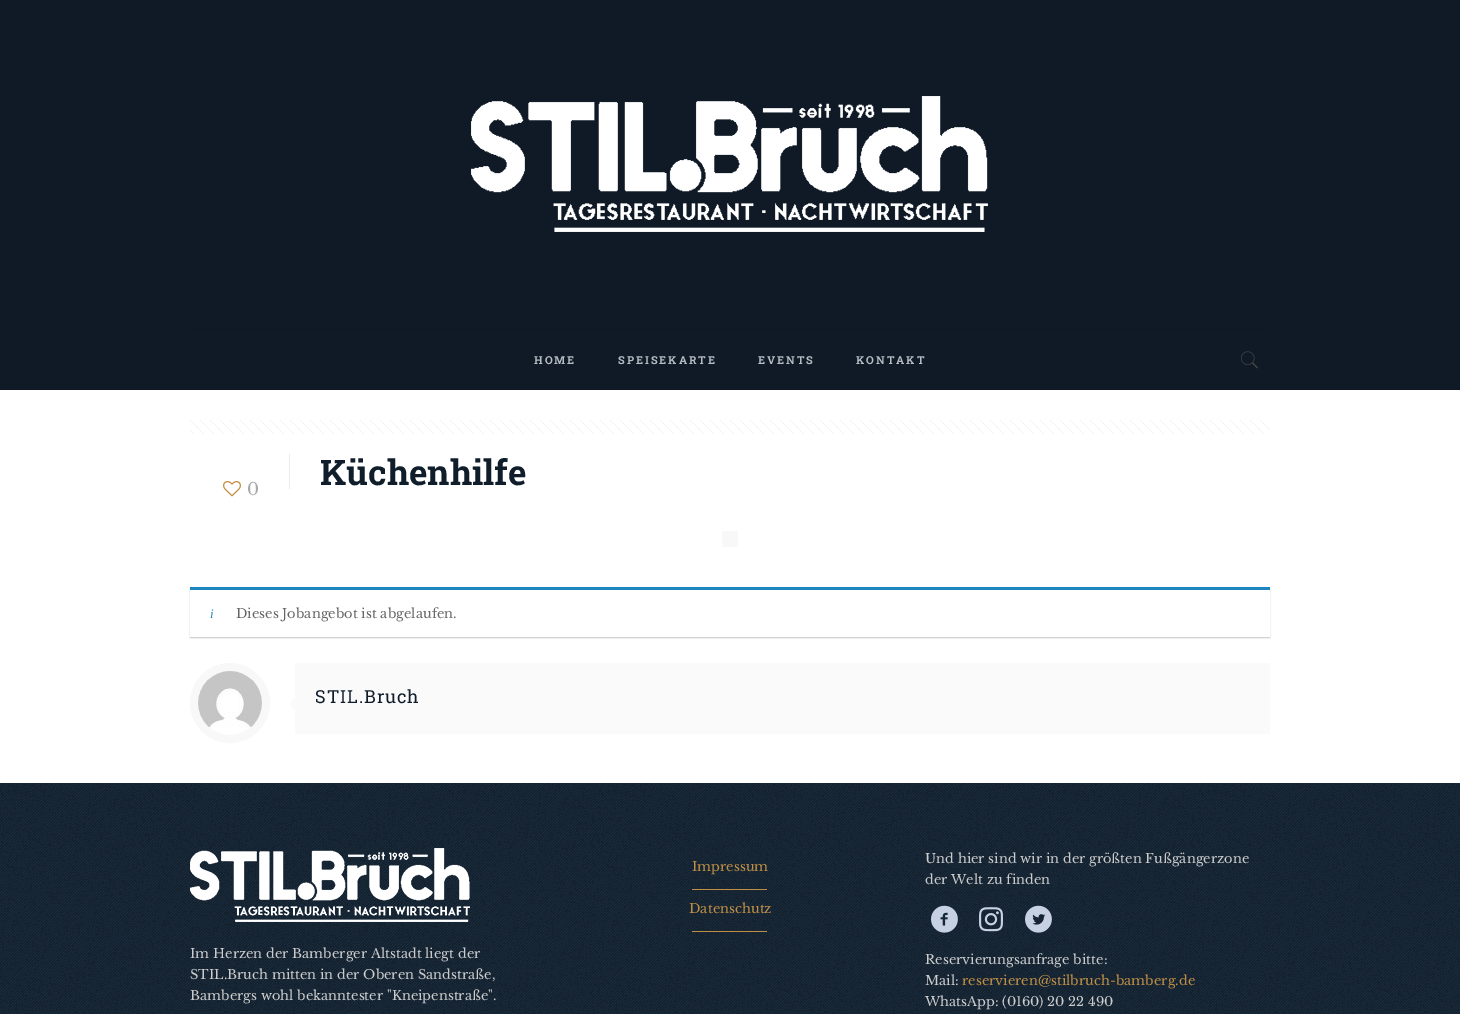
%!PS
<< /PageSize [1460 1014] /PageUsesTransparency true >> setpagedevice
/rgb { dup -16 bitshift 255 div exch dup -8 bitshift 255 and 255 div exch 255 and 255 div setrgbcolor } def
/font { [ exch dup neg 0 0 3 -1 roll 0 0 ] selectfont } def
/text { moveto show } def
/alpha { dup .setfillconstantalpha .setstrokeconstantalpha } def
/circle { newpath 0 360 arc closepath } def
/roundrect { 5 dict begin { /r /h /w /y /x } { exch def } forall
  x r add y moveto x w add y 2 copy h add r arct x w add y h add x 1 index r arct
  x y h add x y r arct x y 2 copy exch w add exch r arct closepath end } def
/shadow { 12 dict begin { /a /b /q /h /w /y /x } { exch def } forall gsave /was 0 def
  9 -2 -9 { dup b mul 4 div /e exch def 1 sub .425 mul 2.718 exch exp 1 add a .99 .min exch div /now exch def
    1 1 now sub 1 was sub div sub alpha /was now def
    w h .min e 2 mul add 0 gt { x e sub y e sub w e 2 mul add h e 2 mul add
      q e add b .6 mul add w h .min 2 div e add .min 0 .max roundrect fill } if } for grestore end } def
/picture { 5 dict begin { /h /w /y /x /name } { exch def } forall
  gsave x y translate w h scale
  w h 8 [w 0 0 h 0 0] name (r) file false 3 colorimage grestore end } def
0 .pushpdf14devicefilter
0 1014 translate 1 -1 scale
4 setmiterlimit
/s1 { /RobotoSlab-Bold 35 font 16#101D2B rgb } def
/s2 { /LibreBaskerville-Regular 17 font 16#A8A8A8 rgb } def
/s3 { /LiberationSerif-Italic 13 font 16#1E85BE rgb } def
/s4 { /LibreBaskerville-Regular 13 font 16#666666 rgb } def
/s5 { /LibreBaskerville-Regular 13 font 16#BF8F45 rgb } def
/s6 { /LibreBaskerville-Regular 13 font 16#CCCCCC rgb } def
16#FFFFFF rgb
0 0 1460 1014 rectfill
16#0F1A26 rgb
0 0 1460 390 rectfill
16#0E1823 rgb
190 329 1080 1 rectfill
(pic1.raw) 471 96 517 136 picture
/RobotoSlab-Bold 11 font
16#B6BDC4 rgb
534 364 moveto 2 0 (HOME) ashow
618 364 moveto 2 0 (SPEISEKARTE) ashow
758 364 moveto 2 0 (EVENTS) ashow
856 364 moveto 2 0 (KONTAKT) ashow
(pic2.raw) 1241 351 17 18 picture
(pic3.raw) 190 420 1080 14 picture
16#EBEBEB rgb
289 454 1 35 rectfill
s1
(Küchenhilfe) 320 485 text
(pic4.raw) 223 481 18 16 picture
s2
(0) 247 495 text
16#F8F8F8 rgb
722 531 16 16 rectfill
gsave
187 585 moveto 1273 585 lineto 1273 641 lineto 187 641 lineto closepath 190 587 moveto 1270 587 lineto 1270 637 lineto 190 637 lineto closepath eoclip newpath
16#000000 rgb
190 588 1080 50 0 0.5 0.2 shadow
grestore
16#1E85BE rgb
190 587 1080 3 rectfill
s3
(i) 210 618 text
s4
(Dieses Jobangebot ist abgelaufen.) 236 618 text
16#F8F8F8 rgb
8 setlinewidth
230 703 36 circle stroke
(pic5.raw) 198 671 64 57 picture
16#FAFAFA rgb
295 663 975 71 rectfill
295 698 moveto 295 710 lineto 289 704 lineto closepath fill
/RobotoSlab-Regular 18 font
16#101D2B rgb
315 703 moveto 1 0 (STIL.Bruch) ashow
(pic6.raw) 0 783 1460 231 picture
s5
(Impressum) 692 871 text
692 889 75 1 rectfill
(Datenschutz) 689 913 text
692 931 75 1 rectfill
s6
(Und hier sind wir in der größten Fußgängerzone) 925 863 text
(der Welt zu finden) 925 884 text
(pic7.raw) 931 905 27 28 picture
(pic8.raw) 979 907 24 25 picture
(pic9.raw) 1025 905 27 28 picture
(Reservierungsanfrage bitte:) 925 964 text
(Mail:) 925 985 text
s5
(reservieren@stilbruch-bamberg.de) 962 985 text
s6
(WhatsApp: \(0160\) 20 22 490) 925 1006 text
(pic10.raw) 190 848 280 74 picture
(Im Herzen der Bamberger Altstadt liegt der) 190 958 text
(STIL.Bruch mitten in der Oberen Sandstraße,) 190 979 text
(Bambergs wohl bekanntester "Kneipenstraße".) 190 1000 text
.poppdf14devicefilter showpage
